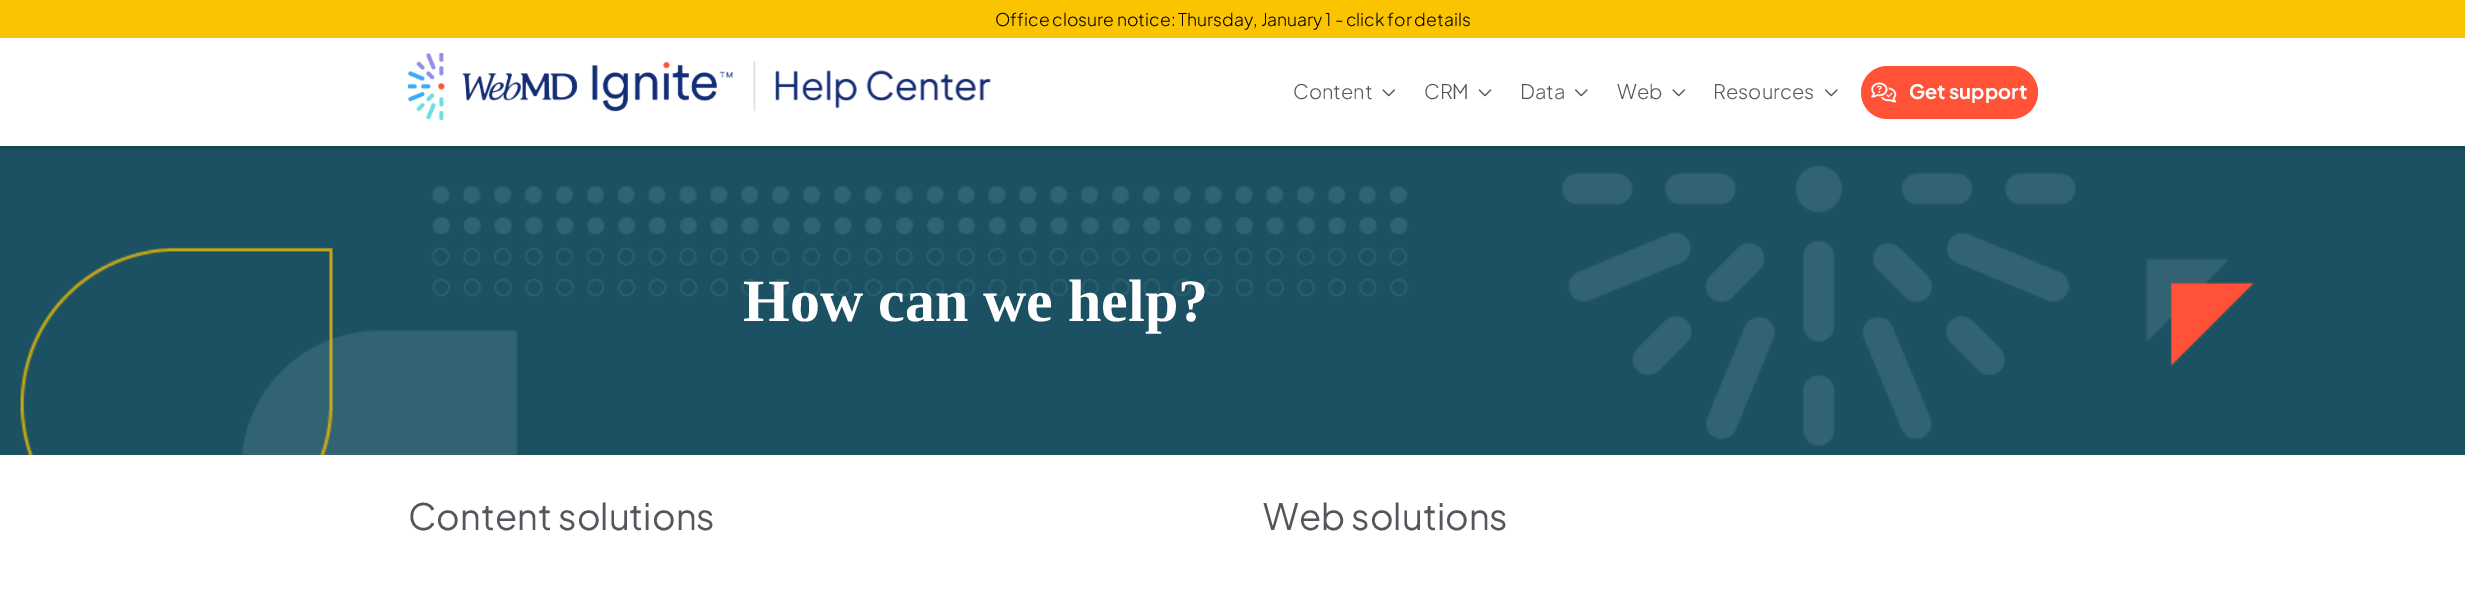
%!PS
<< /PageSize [2465 589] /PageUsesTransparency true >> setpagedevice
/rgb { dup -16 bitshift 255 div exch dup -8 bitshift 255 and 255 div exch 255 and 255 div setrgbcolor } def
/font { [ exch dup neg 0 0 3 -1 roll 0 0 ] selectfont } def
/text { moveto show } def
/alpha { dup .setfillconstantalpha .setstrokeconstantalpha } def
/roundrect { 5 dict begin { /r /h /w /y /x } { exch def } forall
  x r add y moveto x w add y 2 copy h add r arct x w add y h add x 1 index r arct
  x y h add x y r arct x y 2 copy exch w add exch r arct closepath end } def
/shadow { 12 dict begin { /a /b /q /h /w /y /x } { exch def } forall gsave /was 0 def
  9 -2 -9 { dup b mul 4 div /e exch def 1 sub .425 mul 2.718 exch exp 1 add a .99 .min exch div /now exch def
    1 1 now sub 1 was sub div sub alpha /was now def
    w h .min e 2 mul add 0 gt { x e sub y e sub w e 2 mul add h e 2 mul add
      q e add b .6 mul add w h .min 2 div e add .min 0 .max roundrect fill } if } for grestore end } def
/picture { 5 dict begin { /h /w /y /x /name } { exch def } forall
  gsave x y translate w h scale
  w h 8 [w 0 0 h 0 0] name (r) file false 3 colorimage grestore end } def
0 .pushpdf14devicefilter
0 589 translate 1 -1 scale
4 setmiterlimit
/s1 { /PlusJakartaSans-Light 17.5 font 16#000000 rgb } def
/s2 { /PlusJakartaSans-Light 20 font 16#54565B rgb } def
/s3 { /PlusJakartaSans-Bold 20 font 16#FFFFFF rgb } def
/s4 { /LiberationSerif-Bold 60 font 16#FFFFFF rgb } def
/s5 { /PlusJakartaSans-Regular 36.25 font 16#54565B rgb } def
16#FFFFFF rgb
0 0 2465 589 rectfill
16#FBC400 rgb
0 0 2465 38 rectfill
s1
(Office closure notice: Thursday, January 1 - click for details) 995 26 text
16#1B5162 rgb
0 146 2465 309 rectfill
gsave
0 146 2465 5 rectclip
16#000000 rgb
0 40 2465 109 0 2 0.15 shadow
grestore
(pic1.raw) 408 53 583 68 picture
s2
(Content) 1293 99 text
(pic2.raw) 1382 89 13 8 picture
(CRM) 1424 99 text
(pic3.raw) 1478 89 14 8 picture
(Data) 1520 99 text
(pic4.raw) 1575 89 13 8 picture
(Web) 1617 99 text
(pic2.raw) 1672 89 13 8 picture
(Resources) 1713 99 text
(pic4.raw) 1825 89 13 8 picture
16#FF5236 rgb
1861 66 177 53 26.5 roundrect fill
(pic5.raw) 1871 82 26 21 picture
s3
(Get support) 1909 99 text
(pic6.raw) 20 165 2234 290 picture
s4
(How can we help?) 743 321 text
s5
(Content solutions) 408 530 text
(Web solutions) 1263 530 text
.poppdf14devicefilter showpage
